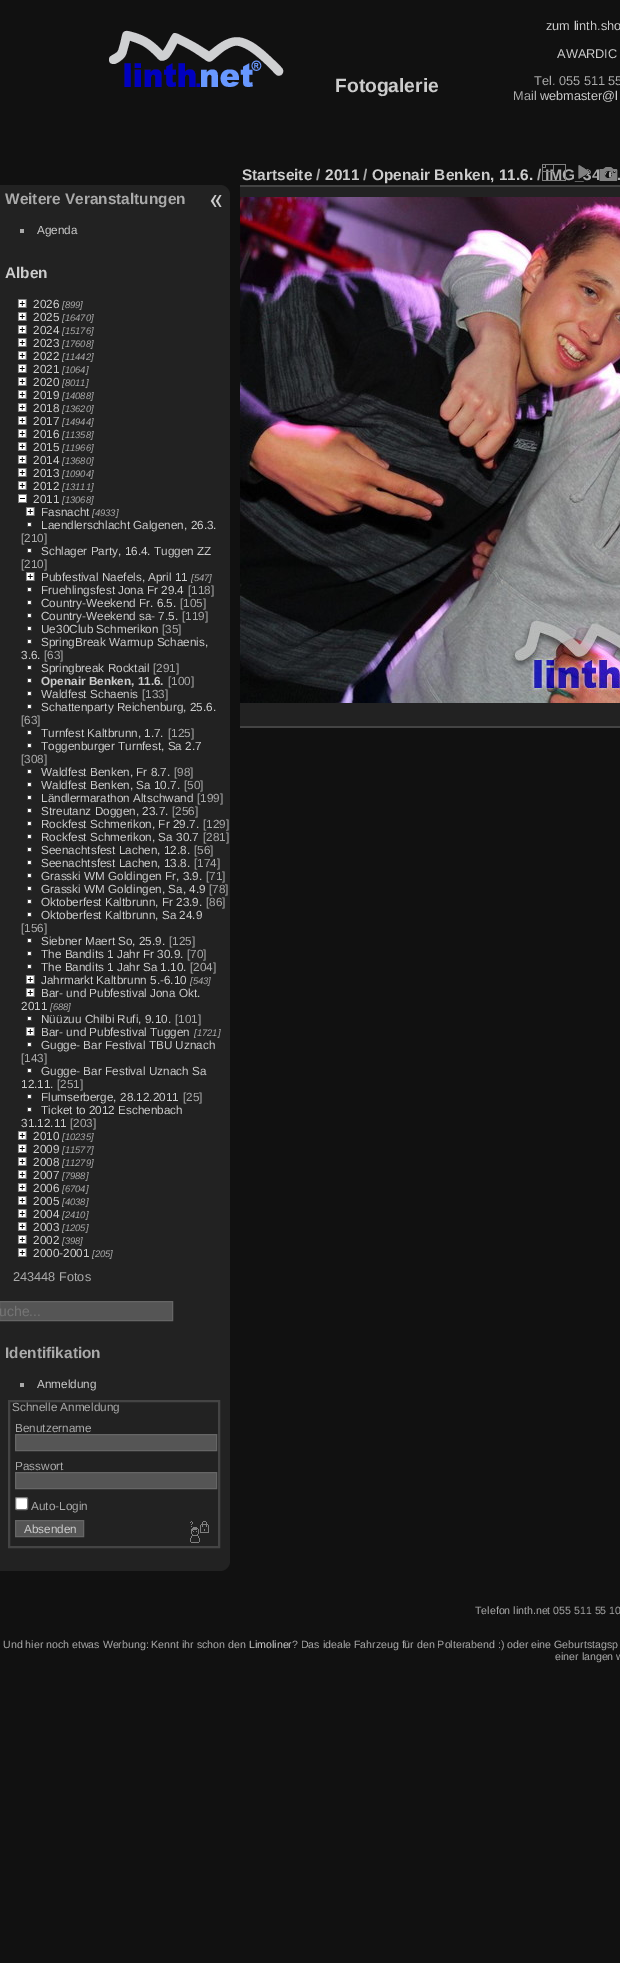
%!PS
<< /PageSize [620 1963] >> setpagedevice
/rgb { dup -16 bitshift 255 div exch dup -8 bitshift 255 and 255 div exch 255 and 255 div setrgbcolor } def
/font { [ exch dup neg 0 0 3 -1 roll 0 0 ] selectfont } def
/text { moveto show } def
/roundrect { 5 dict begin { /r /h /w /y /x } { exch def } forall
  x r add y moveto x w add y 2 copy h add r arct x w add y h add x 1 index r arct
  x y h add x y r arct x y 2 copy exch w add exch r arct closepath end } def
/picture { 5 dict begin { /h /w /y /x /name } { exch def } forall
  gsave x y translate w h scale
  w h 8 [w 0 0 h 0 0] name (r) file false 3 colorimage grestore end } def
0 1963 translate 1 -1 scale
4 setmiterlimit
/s1 { /LiberationSans-Bold 19.25 font 16#CCCCCC rgb } def
/s2 { /LiberationSans-Regular 12.75 font 16#CCCCCC rgb } def
/s3 { /LiberationSans-Regular 12.75 font 16#AAAAAA rgb } def
/s4 { /LiberationSans-Bold 15.4 font 16#AAAAAA rgb } def
/s5 { /LiberationSans-Bold 15.4 font 16#CCCCCC rgb } def
/s6 { /LiberationSans-Regular 11.75 font 16#CCCCCC rgb } def
/s7 { /LiberationSans-Italic 9.5 font 16#AAAAAA rgb } def
/s8 { /LiberationSans-Regular 11.75 font 16#AAAAAA rgb } def
/s9 { /LiberationSans-Bold 11.75 font 16#CCCCCC rgb } def
/s10 { /LiberationSans-Regular 14 font 16#757575 rgb } def
/s11 { /LiberationSans-Regular 10.6 font 16#AAAAAA rgb } def
/s12 { /LiberationSans-Regular 10.6 font 16#CCCCCC rgb } def
16#111111 rgb
0 0 620 1963 rectfill
(pic1.raw) 109 30 175 57 picture
s1
(Fotogalerie) 335 92 text
s2
(zum linth.sho) 546 30 text
(AWARDIC) 557 58 text
s3
(Tel. 055 511 55) 534 85 text
(Mail) 513 100 text
s2
(webmaster@l) 540 100 text
16#222222 rgb
240 187 380 539 rectfill
16#444444 rgb
240 726 380 2 rectfill
s4
(/ IMG_3476.) 537 180 text
(pic2.raw) 542 164 24 17 picture
(pic3.raw) 578 165 12 14 picture
(pic4.raw) 599 167 19 14 picture
16#444444 rgb
240 185 380 2 rectfill
s5
(Startseite) 242 180 text
s4
(/) 316 180 text
s5
(2011) 325 180 text
s4
(/) 363 180 text
s5
(Openair Benken, 11.6.) 372 180 text
(pic5.raw) 240 197 380 506 picture
16#222222 rgb
0 185 moveto 220 185 lineto 225.5 185 230 189.5 230 195 curveto 230 1561 lineto 230 1566.5 225.5 1571 220 1571 curveto 0 1571 lineto closepath fill
s4
(Weitere Veranstaltungen) 5 204 text
20 229 4 4 rectfill
s6
(Agenda) 37 234 text
s5
(Alben) 5 278 text
(pic6.raw) 17 299 10 9 picture
s6
(2026) 33 308 text
s7
([899]) 62 308 text
(pic6.raw) 17 312 10 9 picture
s6
(2025) 33 321 text
s7
([16470]) 62 321 text
(pic6.raw) 17 325 10 9 picture
s6
(2024) 33 334 text
s7
([15176]) 62 334 text
(pic6.raw) 17 338 10 9 picture
s6
(2023) 33 347 text
s7
([17608]) 62 347 text
(pic6.raw) 17 351 10 9 picture
s6
(2022) 33 360 text
s7
([11442]) 62 360 text
(pic6.raw) 17 364 10 9 picture
s6
(2021) 33 373 text
s7
([1064]) 62 373 text
(pic6.raw) 17 377 10 9 picture
s6
(2020) 33 386 text
s7
([8011]) 62 386 text
(pic6.raw) 17 390 10 9 picture
s6
(2019) 33 399 text
s7
([14088]) 62 399 text
(pic6.raw) 17 403 10 9 picture
s6
(2018) 33 412 text
s7
([13620]) 62 412 text
(pic6.raw) 17 416 10 9 picture
s6
(2017) 33 425 text
s7
([14944]) 62 425 text
(pic6.raw) 17 429 10 9 picture
s6
(2016) 33 438 text
s7
([11358]) 62 438 text
(pic6.raw) 17 442 10 9 picture
s6
(2015) 33 451 text
s7
([11966]) 62 451 text
(pic6.raw) 17 455 10 9 picture
s6
(2014) 33 464 text
s7
([13680]) 62 464 text
(pic6.raw) 17 468 10 9 picture
s6
(2013) 33 477 text
s7
([10904]) 62 477 text
(pic6.raw) 17 481 10 9 picture
s6
(2012) 33 490 text
s7
([13111]) 62 490 text
(pic7.raw) 18 494 9 9 picture
s6
(2011) 33 503 text
s7
([13068]) 62 503 text
(pic6.raw) 25 507 10 9 picture
s6
(Fasnacht) 41 516 text
s7
([4933]) 92 516 text
(pic8.raw) 27 522 5 5 picture
s6
(Laendlerschlacht Galgenen, 26.3.) 41 529 text
s8
([210]) 21 542 text
(pic8.raw) 27 548 5 5 picture
s6
(Schlager Party, 16.4. Tuggen ZZ) 41 555 text
s8
([210]) 21 568 text
(pic6.raw) 25 572 10 9 picture
s6
(Pubfestival Naefels, April 11) 41 581 text
s7
([547]) 191 581 text
(pic8.raw) 27 587 5 5 picture
s6
(Fruehlingsfest Jona Fr 29.4) 41 594 text
s8
([118]) 188 594 text
(pic8.raw) 27 600 5 5 picture
s6
(Country-Weekend Fr. 6.5.) 41 607 text
s8
([105]) 180 607 text
(pic8.raw) 27 613 5 5 picture
s6
(Country-Weekend sa- 7.5.) 41 620 text
s8
([119]) 182 620 text
(pic8.raw) 27 626 5 5 picture
s6
(Ue30Club Schmerikon) 41 633 text
s8
([35]) 162 633 text
(pic8.raw) 27 639 5 5 picture
s6
(SpringBreak Warmup Schaenis,) 41 646 text
(3.6.) 21 659 text
s8
([63]) 44 659 text
(pic8.raw) 27 665 5 5 picture
s6
(Springbreak Rocktail) 41 672 text
s8
([291]) 153 672 text
(pic8.raw) 27 678 5 5 picture
s9
(Openair Benken, 11.6.) 41 685 text
s8
([100]) 168 685 text
(pic8.raw) 27 691 5 5 picture
s6
(Waldfest Schaenis) 41 698 text
s8
([133]) 142 698 text
(pic8.raw) 27 704 5 5 picture
s6
(Schattenparty Reichenburg, 25.6.) 41 711 text
s8
([63]) 21 724 text
(pic8.raw) 27 730 5 5 picture
s6
(Turnfest Kaltbrunn, 1.7.) 41 737 text
s8
([125]) 168 737 text
(pic8.raw) 27 743 5 5 picture
s6
(Toggenburger Turnfest, Sa 2.7) 41 750 text
s8
([308]) 21 763 text
(pic8.raw) 27 769 5 5 picture
s6
(Waldfest Benken, Fr 8.7.) 41 776 text
s8
([98]) 174 776 text
(pic8.raw) 27 782 5 5 picture
s6
(Waldfest Benken, Sa 10.7.) 41 789 text
s8
([50]) 184 789 text
(pic8.raw) 27 795 5 5 picture
s6
(Ländlermarathon Altschwand) 41 802 text
s8
([199]) 197 802 text
(pic8.raw) 27 808 5 5 picture
s6
(Streutanz Doggen, 23.7.) 41 815 text
s8
([256]) 172 815 text
(pic8.raw) 27 821 5 5 picture
s6
(Rockfest Schmerikon, Fr 29.7.) 41 828 text
s8
([129]) 203 828 text
(pic8.raw) 27 834 5 5 picture
s6
(Rockfest Schmerikon, Sa 30.7) 41 841 text
s8
([281]) 203 841 text
(pic8.raw) 27 847 5 5 picture
s6
(Seenachtsfest Lachen, 12.8.) 41 854 text
s8
([56]) 194 854 text
(pic8.raw) 27 860 5 5 picture
s6
(Seenachtsfest Lachen, 13.8.) 41 867 text
s8
([174]) 194 867 text
(pic8.raw) 27 873 5 5 picture
s6
(Grasski WM Goldingen Fr, 3.9.) 41 880 text
s8
([71]) 206 880 text
(pic8.raw) 27 886 5 5 picture
s6
(Grasski WM Goldingen, Sa, 4.9) 41 893 text
s8
([78]) 209 893 text
(pic8.raw) 27 899 5 5 picture
s6
(Oktoberfest Kaltbrunn, Fr 23.9.) 41 906 text
s8
([86]) 206 906 text
(pic8.raw) 27 912 5 5 picture
s6
(Oktoberfest Kaltbrunn, Sa 24.9) 41 919 text
s8
([156]) 21 932 text
(pic8.raw) 27 938 5 5 picture
s6
(Siebner Maert So, 25.9.) 41 945 text
s8
([125]) 169 945 text
(pic8.raw) 27 951 5 5 picture
s6
(The Bandits 1 Jahr Fr 30.9.) 41 958 text
s8
([70]) 187 958 text
(pic8.raw) 27 964 5 5 picture
s6
(The Bandits 1 Jahr Sa 1.10.) 41 971 text
s8
([204]) 190 971 text
(pic6.raw) 25 975 10 9 picture
s6
(Jahrmarkt Kaltbrunn 5.-6.10) 41 984 text
s7
([543]) 190 984 text
(pic6.raw) 25 988 10 9 picture
s6
(Bar- und Pubfestival Jona Okt.) 41 997 text
(2011) 21 1010 text
s7
([688]) 50 1010 text
(pic8.raw) 27 1016 5 5 picture
s6
(Nüüzuu Chilbi Rufi, 9.10.) 41 1023 text
s8
([101]) 175 1023 text
(pic6.raw) 25 1027 10 9 picture
s6
(Bar- und Pubfestival Tuggen) 41 1036 text
s7
([1721]) 194 1036 text
(pic8.raw) 27 1042 5 5 picture
s6
(Gugge- Bar Festival TBU Uznach) 41 1049 text
s8
([143]) 21 1062 text
(pic8.raw) 27 1068 5 5 picture
s6
(Gugge- Bar Festival Uznach Sa) 41 1075 text
(12.11.) 21 1088 text
s8
([251]) 57 1088 text
(pic8.raw) 27 1094 5 5 picture
s6
(Flumserberge, 28.12.2011) 41 1101 text
s8
([25]) 183 1101 text
(pic8.raw) 27 1107 5 5 picture
s6
(Ticket to 2012 Eschenbach) 41 1114 text
(31.12.11) 21 1127 text
s8
([203]) 70 1127 text
(pic6.raw) 17 1131 10 9 picture
s6
(2010) 33 1140 text
s7
([10235]) 62 1140 text
(pic6.raw) 17 1144 10 9 picture
s6
(2009) 33 1153 text
s7
([11577]) 62 1153 text
(pic6.raw) 17 1157 10 9 picture
s6
(2008) 33 1166 text
s7
([11279]) 62 1166 text
(pic6.raw) 17 1170 10 9 picture
s6
(2007) 33 1179 text
s7
([7988]) 62 1179 text
(pic6.raw) 17 1183 10 9 picture
s6
(2006) 33 1192 text
s7
([6704]) 62 1192 text
(pic6.raw) 17 1196 10 9 picture
s6
(2005) 33 1205 text
s7
([4038]) 62 1205 text
(pic6.raw) 17 1209 10 9 picture
s6
(2004) 33 1218 text
s7
([2410]) 62 1218 text
(pic6.raw) 17 1222 10 9 picture
s6
(2003) 33 1231 text
s7
([1205]) 62 1231 text
(pic6.raw) 17 1235 10 9 picture
s6
(2002) 33 1244 text
s7
([398]) 62 1244 text
(pic6.raw) 17 1248 10 9 picture
s6
(2000-2001) 33 1257 text
s7
([205]) 92 1257 text
s3
(243448 Fotos) 13 1281 text
16#555555 rgb
-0.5 1301.5 moveto 172.5 1301.5 lineto 172.5 1320.5 lineto -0.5 1320.5 lineto closepath gsave fill grestore
16#666666 rgb
stroke
s10
(uche...) -1 1316 text
s4
(Identifikation) 5 1358 text
20 1383 4 4 rectfill
s6
(Anmeldung) 37 1388 text
16#444444 rgb
2 setlinewidth
9 1401 210 146 rectstroke
s8
(Schnelle Anmeldung) 12 1411 text
(Benutzername) 15 1432 text
16#555555 rgb
15.5 1434.5 moveto 216.5 1434.5 lineto 216.5 1450.5 lineto 15.5 1450.5 lineto closepath gsave fill grestore
16#666666 rgb
1 setlinewidth
stroke
s8
(Passwort) 15 1470 text
16#555555 rgb
15.5 1472.5 moveto 216.5 1472.5 lineto 216.5 1488.5 lineto 15.5 1488.5 lineto closepath gsave fill grestore
16#666666 rgb
stroke
16#FFFFFF rgb
15.5 1497.5 12 12 1.5 roundrect gsave fill grestore
16#767676 rgb
stroke
s8
(Auto-Login) 31 1510 text
16#555555 rgb
15.5 1520.5 moveto 83.5 1520.5 lineto 83.5 1536.5 lineto 15.5 1536.5 lineto closepath gsave fill grestore
16#666666 rgb
stroke
s6
(Absenden) 24 1533 text
(pic9.raw) 190 1521 19 22 picture
(pic10.raw) 210 195 12 12 picture
s11
(Telefon linth.net 055 511 55 10) 475 1614 text
(Und hier noch etwas Werbung: Kennt ihr schon den) 3 1648 text
s12
(Limoliner) 249 1648 text
s11
(? Das ideale Fahrzeug für den Polterabend :\) oder eine Geburtstagsp) 292 1648 text
(einer langen w) 555 1660 text
showpage
